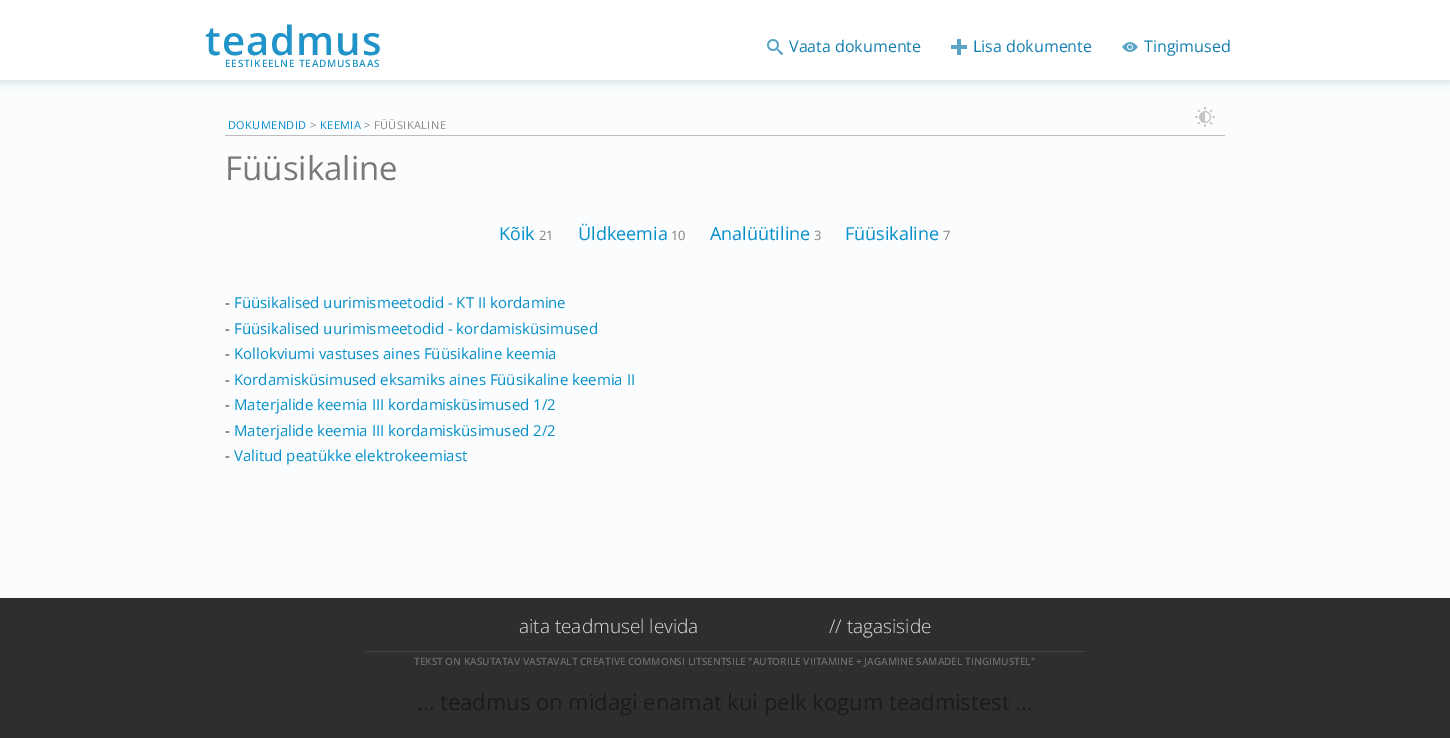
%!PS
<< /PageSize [1450 738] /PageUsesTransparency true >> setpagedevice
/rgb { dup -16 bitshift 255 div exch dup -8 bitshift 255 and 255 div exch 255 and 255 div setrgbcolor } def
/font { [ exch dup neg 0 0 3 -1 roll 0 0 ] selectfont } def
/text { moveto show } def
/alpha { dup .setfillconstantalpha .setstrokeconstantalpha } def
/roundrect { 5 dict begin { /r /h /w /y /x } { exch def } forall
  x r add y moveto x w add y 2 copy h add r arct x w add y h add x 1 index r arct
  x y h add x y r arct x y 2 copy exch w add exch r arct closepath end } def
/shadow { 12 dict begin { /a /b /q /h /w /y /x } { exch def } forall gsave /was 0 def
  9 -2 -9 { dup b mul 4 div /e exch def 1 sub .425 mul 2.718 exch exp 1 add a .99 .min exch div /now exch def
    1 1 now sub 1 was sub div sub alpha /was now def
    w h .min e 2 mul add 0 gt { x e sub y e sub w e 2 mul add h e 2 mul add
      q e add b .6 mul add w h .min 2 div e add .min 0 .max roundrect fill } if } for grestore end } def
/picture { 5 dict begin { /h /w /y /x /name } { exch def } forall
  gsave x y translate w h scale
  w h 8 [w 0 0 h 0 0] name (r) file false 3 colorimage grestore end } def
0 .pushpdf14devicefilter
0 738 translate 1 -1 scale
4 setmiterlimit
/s1 { /OpenSans-Regular 16 font 16#137DB0 rgb } def
/s2 { /OpenSans-Regular 33 font 16#787878 rgb } def
/s3 { /OpenSans-Regular 18 font 16#068FC9 rgb } def
/s4 { /OpenSans-Regular 13 font 16#808080 rgb } def
/s5 { /OpenSans-Regular 15 font 16#333333 rgb } def
/s6 { /OpenSans-Regular 15 font 16#068FC9 rgb } def
/s7 { /OpenSans-Light 19 font 16#DDDDDD rgb } def
/s8 { /OpenSans-SemiBold 10 font 16#6B6B6B rgb } def
/s9 { /OpenSans-Regular 22 font 16#1A1A1A rgb } def
16#FAFCFD rgb
0 0 1450 738 rectfill
16#CAD7E1 rgb
0 1 1450 80 0 4.5 1 shadow
16#FFFFFF rgb
0 0 1450 80 rectfill
/OpenSans-SemiBold 40 font
16#2094C9 rgb
205 55 moveto 1 0 (teadmus) ashow
/OpenSans-SemiBold 10 font
225 67 moveto 0.8 0 (EESTIKEELNE TEADMUSBAAS) ashow
s1
(Vaata dokumente) 789 52 text
0.7 alpha
16#FFFFFF rgb
767 39 22 16 3 roundrect fill
1 alpha
(pic1.raw) 767 39 16 16 picture
(pic2.raw) 951 39 16 16 picture
s1
(Lisa dokumente) 973 52 text
(Tingimused) 1144 52 text
0.7 alpha
16#FFFFFF rgb
1122 39 22 16 3 roundrect fill
1 alpha
(pic3.raw) 1122 42 16 10 picture
/OpenSans-Regular 11 font
16#068FC9 rgb
228 129 moveto 0.4 0 (DOKUMENDID) ashow
16#8C8C8C rgb
310 129 moveto 0.4 0 (>) ashow
16#068FC9 rgb
320 129 moveto 0.4 0 (KEEMIA) ashow
16#8C8C8C rgb
364 129 moveto 0.4 0 (> FÜÜSIKALINE) ashow
(pic4.raw) 1195 107 20 20 picture
16#BCBCBC rgb
225 135 1000 1 rectfill
s2
(Füüsikaline) 225 180 text
s3
(Kõik) 499 240 text
s4
(21) 539 240 text
s3
(Üldkeemia) 578 240 text
s4
(10) 671 240 text
s3
(Analüütiline) 710 240 text
s4
(3) 814 240 text
s3
(Füüsikaline) 845 240 text
s4
(7) 943 240 text
s5
(-) 225 308 text
s6
(Füüsikalised uurimismeetodid - KT II kordamine) 234 308 text
s5
(-) 225 334 text
s6
(Füüsikalised uurimismeetodid - kordamisküsimused) 234 334 text
s5
(-) 225 359 text
s6
(Kollokviumi vastuses aines Füüsikaline keemia) 234 359 text
s5
(-) 225 385 text
s6
(Kordamisküsimused eksamiks aines Füüsikaline keemia II) 234 385 text
s5
(-) 225 410 text
s6
(Materjalide keemia III kordamisküsimused 1/2) 234 410 text
s5
(-) 225 436 text
s6
(Materjalide keemia III kordamisküsimused 2/2) 234 436 text
s5
(-) 225 461 text
s6
(Valitud peatükke elektrokeemiast) 234 461 text
16#2E2E2E rgb
0 598 1450 140 rectfill
s7
(aita teadmusel levida) 519 633 text
(// tagasiside) 829 633 text
16#434343 rgb
365 651 720 1 rectfill
s8
(TEKST ON KASUTATAV VASTAVALT CREATIVE COMMONSI LITSENTSILE "AUTORILE VIITAMINE + JAGAMINE SAMADEL TINGIMUSTEL") 414 665 text
s9
(... teadmus on midagi enamat kui pelk kogum teadmistest ...) 417 710 text
.poppdf14devicefilter showpage
